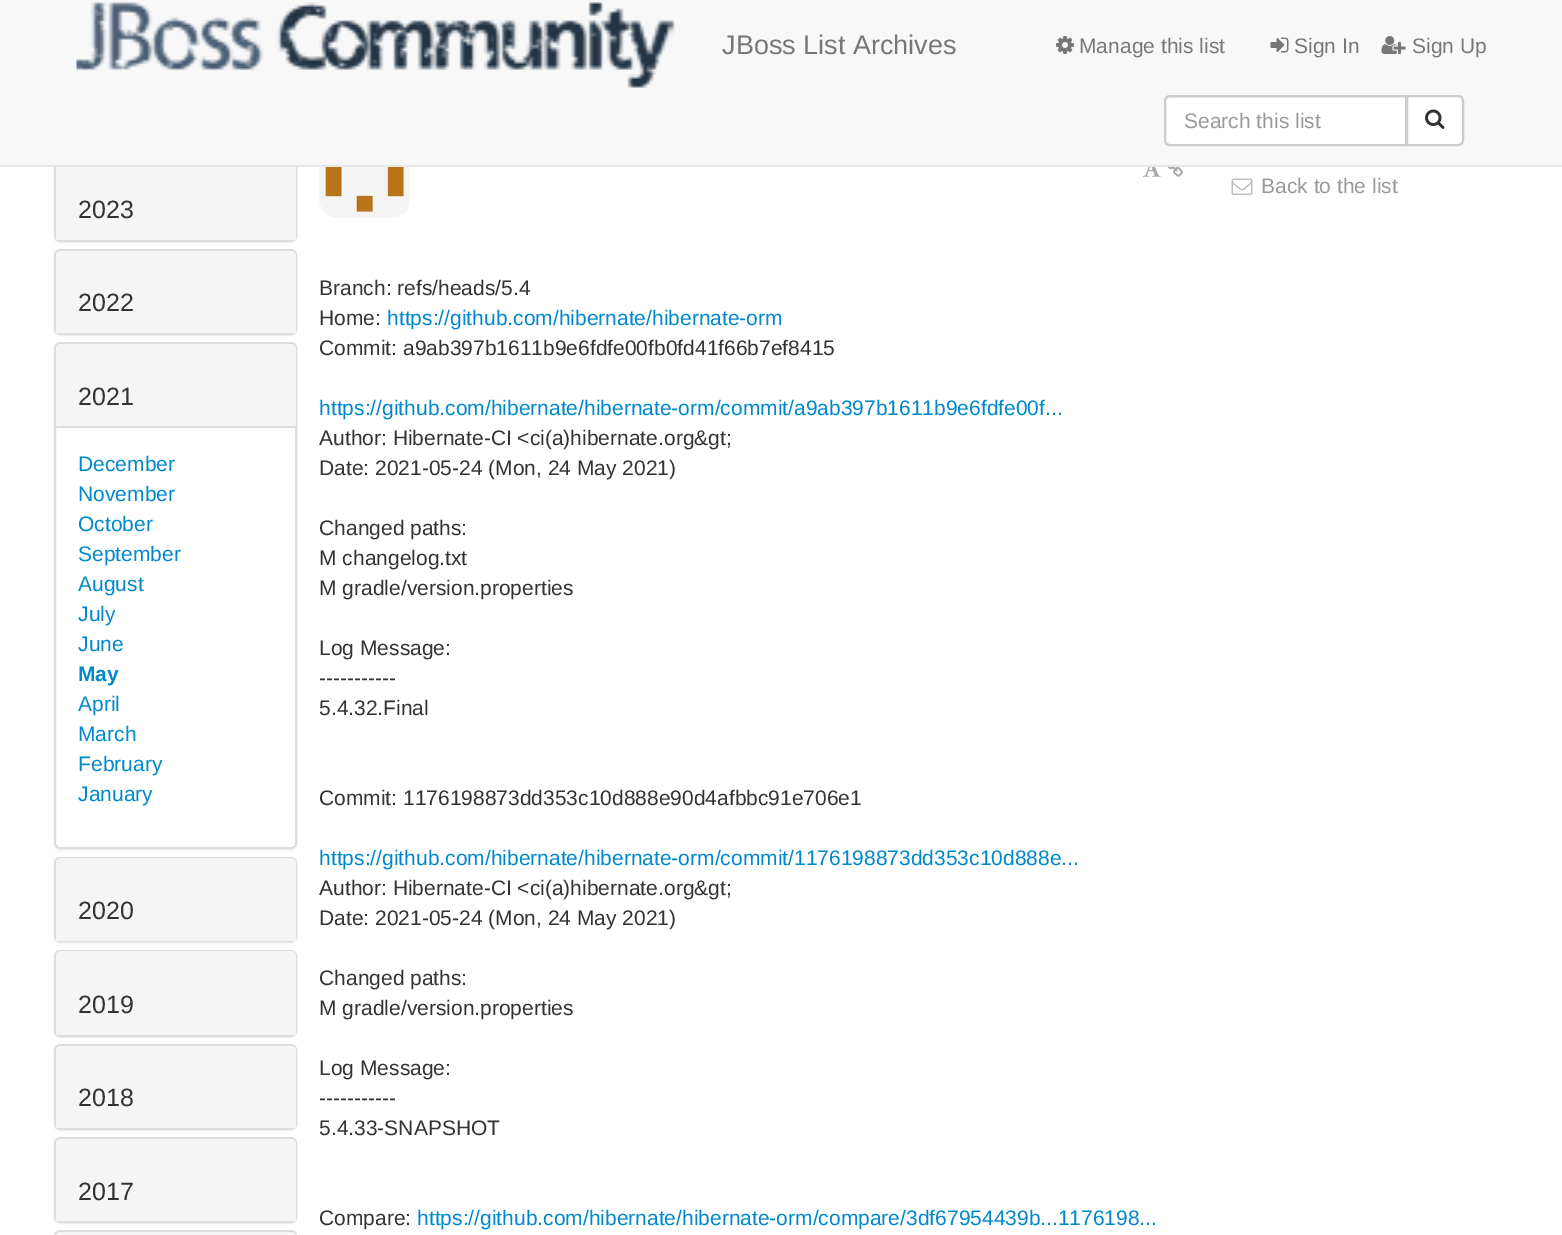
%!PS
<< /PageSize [1562 1235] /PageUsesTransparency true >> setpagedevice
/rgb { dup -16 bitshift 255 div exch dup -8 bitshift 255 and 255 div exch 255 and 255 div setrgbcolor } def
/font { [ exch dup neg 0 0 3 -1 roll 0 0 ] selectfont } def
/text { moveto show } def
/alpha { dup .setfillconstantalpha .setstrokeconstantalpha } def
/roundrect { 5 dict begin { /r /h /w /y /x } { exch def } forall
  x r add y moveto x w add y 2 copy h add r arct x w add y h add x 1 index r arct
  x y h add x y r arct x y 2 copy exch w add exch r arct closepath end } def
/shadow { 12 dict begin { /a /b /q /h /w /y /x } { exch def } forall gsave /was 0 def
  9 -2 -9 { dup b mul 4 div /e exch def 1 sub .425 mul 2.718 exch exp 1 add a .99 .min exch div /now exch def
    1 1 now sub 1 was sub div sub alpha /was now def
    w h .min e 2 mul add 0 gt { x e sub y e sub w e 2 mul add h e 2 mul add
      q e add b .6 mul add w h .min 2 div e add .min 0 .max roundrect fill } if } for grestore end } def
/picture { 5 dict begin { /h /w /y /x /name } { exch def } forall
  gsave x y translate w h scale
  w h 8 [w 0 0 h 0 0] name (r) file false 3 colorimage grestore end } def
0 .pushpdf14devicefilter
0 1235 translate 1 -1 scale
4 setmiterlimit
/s1 { /LiberationSans-Regular 27 font 16#777777 rgb } def
/s2 { /LiberationSans-Regular 21 font 16#777777 rgb } def
/s3 { /LiberationSans-Regular 21 font 16#999999 rgb } def
/s4 { /LiberationSans-Regular 25 font 16#333333 rgb } def
/s5 { /LiberationSans-Regular 21 font 16#0088CC rgb } def
/s6 { /LiberationSans-Bold 21 font 16#0088CC rgb } def
/s7 { /LiberationSans-Regular 21 font 16#333333 rgb } def
16#FFFFFF rgb
0 0 1562 1235 rectfill
16#000000 rgb
54 158 243 85 6 1 0.05 shadow
16#DDDDDD rgb
2 setlinewidth
55 157 241 84 5 roundrect stroke
16#F8F8F8 rgb
0 0 1562 165 rectfill
16#E7E7E7 rgb
0 165 1562 2 rectfill
(pic1.raw) 76 2 599 86 picture
s1
(JBoss List Archives) 722 54 text
(pic2.raw) 1056 36 18 18 picture
s2
(Manage this list) 1079 53 text
(pic3.raw) 1270 37 19 16 picture
(Sign In) 1294 53 text
(pic4.raw) 1381 36 25 18 picture
(Sign Up) 1412 53 text
16#FFFFFF rgb
1170 95 moveto 1407 95 lineto 1407 146 lineto 1170 146 lineto 1166.5 146 1164 143.5 1164 140 curveto 1164 101 lineto 1164 97.5 1166.5 95 1170 95 curveto closepath fill
16#ECECEC rgb
1170 98 moveto 1406 98 lineto 1406 96 lineto 1171 96 lineto 1168 96 1166 98 1166 101 curveto 1166 102 lineto 1166 100 1168 98 1170 98 curveto closepath fill
16#CCCCCC rgb
1170 96 moveto 1406 96 lineto 1406 145 lineto 1170 145 lineto 1167 145 1165 143 1165 140 curveto 1165 101 lineto 1165 98 1167 96 1170 96 curveto closepath stroke
s3
(Search this list) 1184 128 text
16#FFFFFF rgb
1407 96 moveto 1458 96 lineto 1461 96 1463 98 1463 101 curveto 1463 140 lineto 1463 143 1461 145 1458 145 curveto 1407 145 lineto closepath gsave fill grestore
16#CCCCCC rgb
stroke
(pic5.raw) 1425 109 20 20 picture
16#F5F5F5 rgb
56 167 240 73 rectfill
s4
(2023) 78 218 text
16#000000 rgb
54 251 243 85 6 1 0.05 shadow
16#FFFFFF rgb
55 250 241 84 5 roundrect gsave fill grestore
16#DDDDDD rgb
stroke
16#F5F5F5 rgb
61 251 moveto 291 251 lineto 294 251 296 253 296 256 curveto 296 333 lineto 56 333 lineto 56 256 lineto 56 253 58 251 61 251 curveto closepath fill
s4
(2022) 78 311 text
16#000000 rgb
54 344 243 507 6 1 0.05 shadow
16#FFFFFF rgb
55 343 241 505 5 roundrect gsave fill grestore
16#DDDDDD rgb
stroke
16#F5F5F5 rgb
61 344 moveto 291 344 lineto 294 344 296 346 296 349 curveto 296 426 lineto 56 426 lineto 56 349 lineto 56 346 58 344 61 344 curveto closepath fill
s4
(2021) 78 405 text
16#DDDDDD rgb
56 426 240 2 rectfill
s5
(December) 78 471 text
(November) 78 501 text
(October) 78 531 text
(September) 78 561 text
(August) 78 591 text
(July) 78 621 text
(June) 78 651 text
s6
(May) 78 681 text
s5
(April) 78 711 text
(March) 78 741 text
(February) 78 771 text
(January) 78 801 text
16#000000 rgb
54 858 243 86 6 1 0.05 shadow
16#DDDDDD rgb
55 858 241 83 5 roundrect stroke
16#F5F5F5 rgb
61 858 moveto 291 858 lineto 294 858 296 860 296 863 curveto 296 941 lineto 56 941 lineto 56 863 lineto 56 860 58 858 61 858 curveto closepath fill
s4
(2020) 78 919 text
16#000000 rgb
54 951 243 87 6 1 0.05 shadow
16#DDDDDD rgb
55 951 241 85 5 roundrect stroke
16#F5F5F5 rgb
61 951 moveto 291 951 lineto 294 951 296 953 296 956 curveto 296 1035 lineto 56 1035 lineto 56 956 lineto 56 953 58 951 61 951 curveto closepath fill
s4
(2019) 78 1013 text
16#000000 rgb
54 1046 243 85 6 1 0.05 shadow
16#FFFFFF rgb
55 1045 241 84 5 roundrect gsave fill grestore
16#DDDDDD rgb
stroke
16#F5F5F5 rgb
61 1046 moveto 291 1046 lineto 294 1046 296 1048 296 1051 curveto 296 1128 lineto 56 1128 lineto 56 1051 lineto 56 1048 58 1046 61 1046 curveto closepath fill
s4
(2018) 78 1106 text
16#000000 rgb
54 1139 243 85 6 1 0.05 shadow
16#FFFFFF rgb
55 1138 241 84 5 roundrect gsave fill grestore
16#DDDDDD rgb
stroke
16#F5F5F5 rgb
61 1139 moveto 291 1139 lineto 294 1139 296 1141 296 1144 curveto 296 1221 lineto 56 1221 lineto 56 1144 lineto 56 1141 58 1139 61 1139 curveto closepath fill
s4
(2017) 78 1200 text
16#DDDDDD rgb
55 1231 241 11 5 roundrect stroke
16#F5F5F5 rgb
61 1232 moveto 291 1232 lineto 294 1232 296 1234 296 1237 curveto 296 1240 lineto 56 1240 lineto 56 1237 lineto 56 1234 58 1232 61 1232 curveto closepath fill
(pic6.raw) 1231 178 22 17 picture
s3
(Back to the list) 1261 193 text
(pic7.raw) 319 167 91 51 picture
(pic8.raw) 1143 167 18 10 picture
(pic9.raw) 1167 167 16 10 picture
s7
(Branch: refs/heads/5.4) 319 295 text
(Home:) 319 325 text
s5
(https://github.com/hibernate/hibernate-orm) 387 325 text
s7
(Commit: a9ab397b1611b9e6fdfe00fb0fd41f66b7ef8415) 319 355 text
s5
(https://github.com/hibernate/hibernate-orm/commit/a9ab397b1611b9e6fdfe00f...) 319 415 text
s7
(Author: Hibernate-CI <ci\(a\)hibernate.org&gt;) 319 445 text
(Date: 2021-05-24 \(Mon, 24 May 2021\)) 319 475 text
(Changed paths:) 319 535 text
(M changelog.txt) 319 565 text
(M gradle/version.properties) 319 595 text
(Log Message:) 319 655 text
(-----------) 319 685 text
(5.4.32.Final) 319 715 text
(Commit: 1176198873dd353c10d888e90d4afbbc91e706e1) 319 805 text
s5
(https://github.com/hibernate/hibernate-orm/commit/1176198873dd353c10d888e...) 319 865 text
s7
(Author: Hibernate-CI <ci\(a\)hibernate.org&gt;) 319 895 text
(Date: 2021-05-24 \(Mon, 24 May 2021\)) 319 925 text
(Changed paths:) 319 985 text
(M gradle/version.properties) 319 1015 text
(Log Message:) 319 1075 text
(-----------) 319 1105 text
(5.4.33-SNAPSHOT) 319 1135 text
(Compare:) 319 1225 text
s5
(https://github.com/hibernate/hibernate-orm/compare/3df67954439b...1176198...) 417 1225 text
.poppdf14devicefilter showpage
